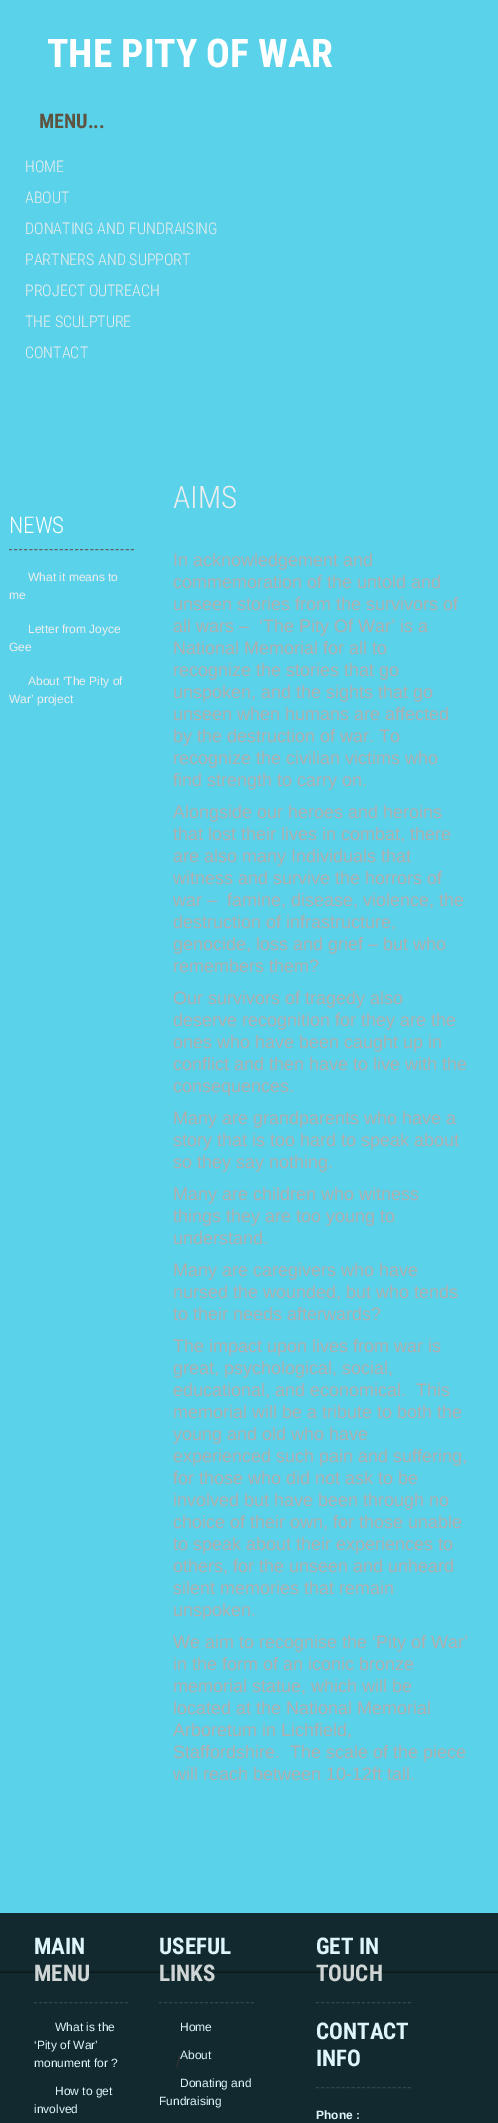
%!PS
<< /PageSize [498 2123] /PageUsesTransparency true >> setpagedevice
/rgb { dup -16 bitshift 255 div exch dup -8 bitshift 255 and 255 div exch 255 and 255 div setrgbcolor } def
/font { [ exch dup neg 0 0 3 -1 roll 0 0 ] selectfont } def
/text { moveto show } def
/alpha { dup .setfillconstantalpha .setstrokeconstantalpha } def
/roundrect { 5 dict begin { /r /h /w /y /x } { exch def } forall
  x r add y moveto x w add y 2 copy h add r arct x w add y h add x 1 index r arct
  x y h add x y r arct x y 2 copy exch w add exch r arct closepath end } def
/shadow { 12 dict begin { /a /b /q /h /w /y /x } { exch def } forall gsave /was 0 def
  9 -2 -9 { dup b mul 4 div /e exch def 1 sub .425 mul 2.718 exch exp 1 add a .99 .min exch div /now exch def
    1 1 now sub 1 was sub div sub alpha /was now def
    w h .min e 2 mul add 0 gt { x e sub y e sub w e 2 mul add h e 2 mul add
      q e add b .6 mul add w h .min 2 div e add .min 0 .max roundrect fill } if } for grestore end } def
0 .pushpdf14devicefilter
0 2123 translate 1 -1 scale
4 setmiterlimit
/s1 { /RobotoCondensed-Bold 39.5 font 16#FFFFFF rgb } def
/s2 { /RobotoCondensed-Bold 20 font 16#5E5340 rgb } def
/s3 { /RobotoCondensed-Light 16 font 16#EEEDED rgb } def
/s4 { /RobotoCondensed-Light 23 font 16#FFFFFF rgb } def
/s5 { /LiberationSans-Regular 12 font 16#EEEDED rgb } def
/s6 { /RobotoCondensed-Light 31 font 16#EEEDED rgb } def
/s7 { /LiberationSans-Regular 18 font 16#AEAEAE rgb } def
/s8 { /RobotoCondensed-Bold 23 font 16#DEF6FB rgb } def
/s9 { /RobotoCondensed-Bold 23 font 16#CFD4D5 rgb } def
/s10 { /LiberationSans-Regular 12 font 16#DEF6FB rgb } def
/s11 { /LiberationSans-Bold 12 font 16#DEF6FB rgb } def
/s12 { /LiberationSans-Regular 16 font 16#333333 rgb } def
16#59D2EA rgb
0 0 498 2123 rectfill
16#122A2F rgb
0 1913 498 210 rectfill
s1
(THE PITY OF WAR) 47 67 text
s2
(MENU...) 39 128 text
s3
(HOME) 25 172 text
(ABOUT) 25 203 text
(DONATING AND FUNDRAISING) 25 234 text
(PARTNERS AND SUPPORT) 25 265 text
(PROJECT OUTREACH) 25 296 text
(THE SCULPTURE) 25 327 text
(CONTACT) 25 358 text
16#606266 rgb
[3 2.08] 0 setdash
9 549.5 moveto 134 549.5 lineto stroke
s4
(NEWS) 9 533 text
s5
(What it means to) 28 581 text
(me) 9 599 text
(Letter from Joyce) 28 633 text
(Gee) 9 651 text
(About ‘The Pity of) 28 685 text
(War’ project) 9 703 text
s6
(AIMS) 173 508 text
s7
(In acknowledgement and) 173 566 text
(commemoration of the untold and) 173 588 text
(unseen stories from the survivors of) 173 610 text
(all wars –  ‘The Pity Of War’ is a) 173 632 text
(National Memorial for all to) 173 654 text
(recognize the stories that go) 173 676 text
(unspoken, and the sights that go) 173 698 text
(unseen when humans are affected) 173 720 text
(by the destruction of war. To) 173 742 text
(recognize the civilian victims who) 173 764 text
(find strength to carry on.) 173 786 text
(Alongside our heroes and heroins) 173 818 text
(that lost their lives in combat, there) 173 840 text
(are also many Individuals that) 173 862 text
(witness and survive the horrors of) 173 884 text
(war –  famine, disease, violence, the) 173 906 text
(destruction of infrastructure,) 173 928 text
(genocide, loss and grief – but who) 173 950 text
(remembers them?) 173 972 text
(Our survivors of tragedy also) 173 1004 text
(deserve recognition for they are the) 173 1026 text
(ones who have been caught up in) 173 1048 text
(conflict and then have to live with the) 173 1070 text
(consequences.) 173 1092 text
(Many are grandparents who have a) 173 1124 text
(story that is too hard to speak about) 173 1146 text
(so they say nothing.) 173 1168 text
(Many are children who witness) 173 1200 text
(things they are too young to) 173 1222 text
(understand.) 173 1244 text
(Many are caregivers who have) 173 1276 text
(nursed the wounded, but who tends) 173 1298 text
(to their needs afterwards?) 173 1320 text
(The impact upon lives from war is) 173 1352 text
(great, psychological, social,) 173 1374 text
(educational, and economical.  This) 173 1396 text
(memorial will be a tribute to both the) 173 1418 text
(young and old who have) 173 1440 text
(experienced such pain and suffering,) 173 1462 text
(for those who did not ask to be) 173 1484 text
(involved but have been through no) 173 1506 text
(choice of their own, for those unable) 173 1528 text
(to speak about their experiences to) 173 1550 text
(others, for the unseen and unheard) 173 1572 text
(silent memories that remain) 173 1594 text
(unspoken.) 173 1616 text
(We aim to recognise the ‘Pity of War’) 173 1648 text
(in the form of an iconic bronze) 173 1670 text
(memorial statue, which will be) 173 1692 text
(located at the National Memorial) 173 1714 text
(Arboretum in Lichfield,) 173 1736 text
(Staffordshire.  The scale of the piece) 173 1758 text
(will reach between 10-12ft tall.) 173 1780 text
gsave
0 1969 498 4 rectclip
16#000000 rgb
0 1973 498 150 0 2 1 shadow
grestore
16#2F474C rgb
[3 2.06] 0 setdash
34 2002.5 moveto 128 2002.5 lineto stroke
s8
(MAIN) 34 1954 text
s9
(MENU) 34 1981 text
s10
(What is the) 55 2031 text
(‘Pity of War’) 34 2049 text
(monument for ?) 34 2067 text
(How to get) 55 2095 text
(involved) 34 2113 text
16#2F474C rgb
[3 2.11] 0 setdash
159 2002.5 moveto 254 2002.5 lineto stroke
s8
(USEFUL) 159 1954 text
s9
(LINKS) 159 1981 text
s10
(Home) 180 2031 text
(About) 180 2059 text
(Donating and) 180 2087 text
(Fundraising) 159 2105 text
16#2F474C rgb
316 2002.5 moveto 411 2002.5 lineto stroke
s8
(GET IN) 316 1954 text
s9
(TOUCH) 316 1981 text
16#2F474C rgb
316 2087.5 moveto 411 2087.5 lineto stroke
s8
(CONTACT) 316 2039 text
(INFO) 316 2066 text
s11
(Phone :) 316 2119 text
s12
(/) 176 2067 text
.poppdf14devicefilter showpage
